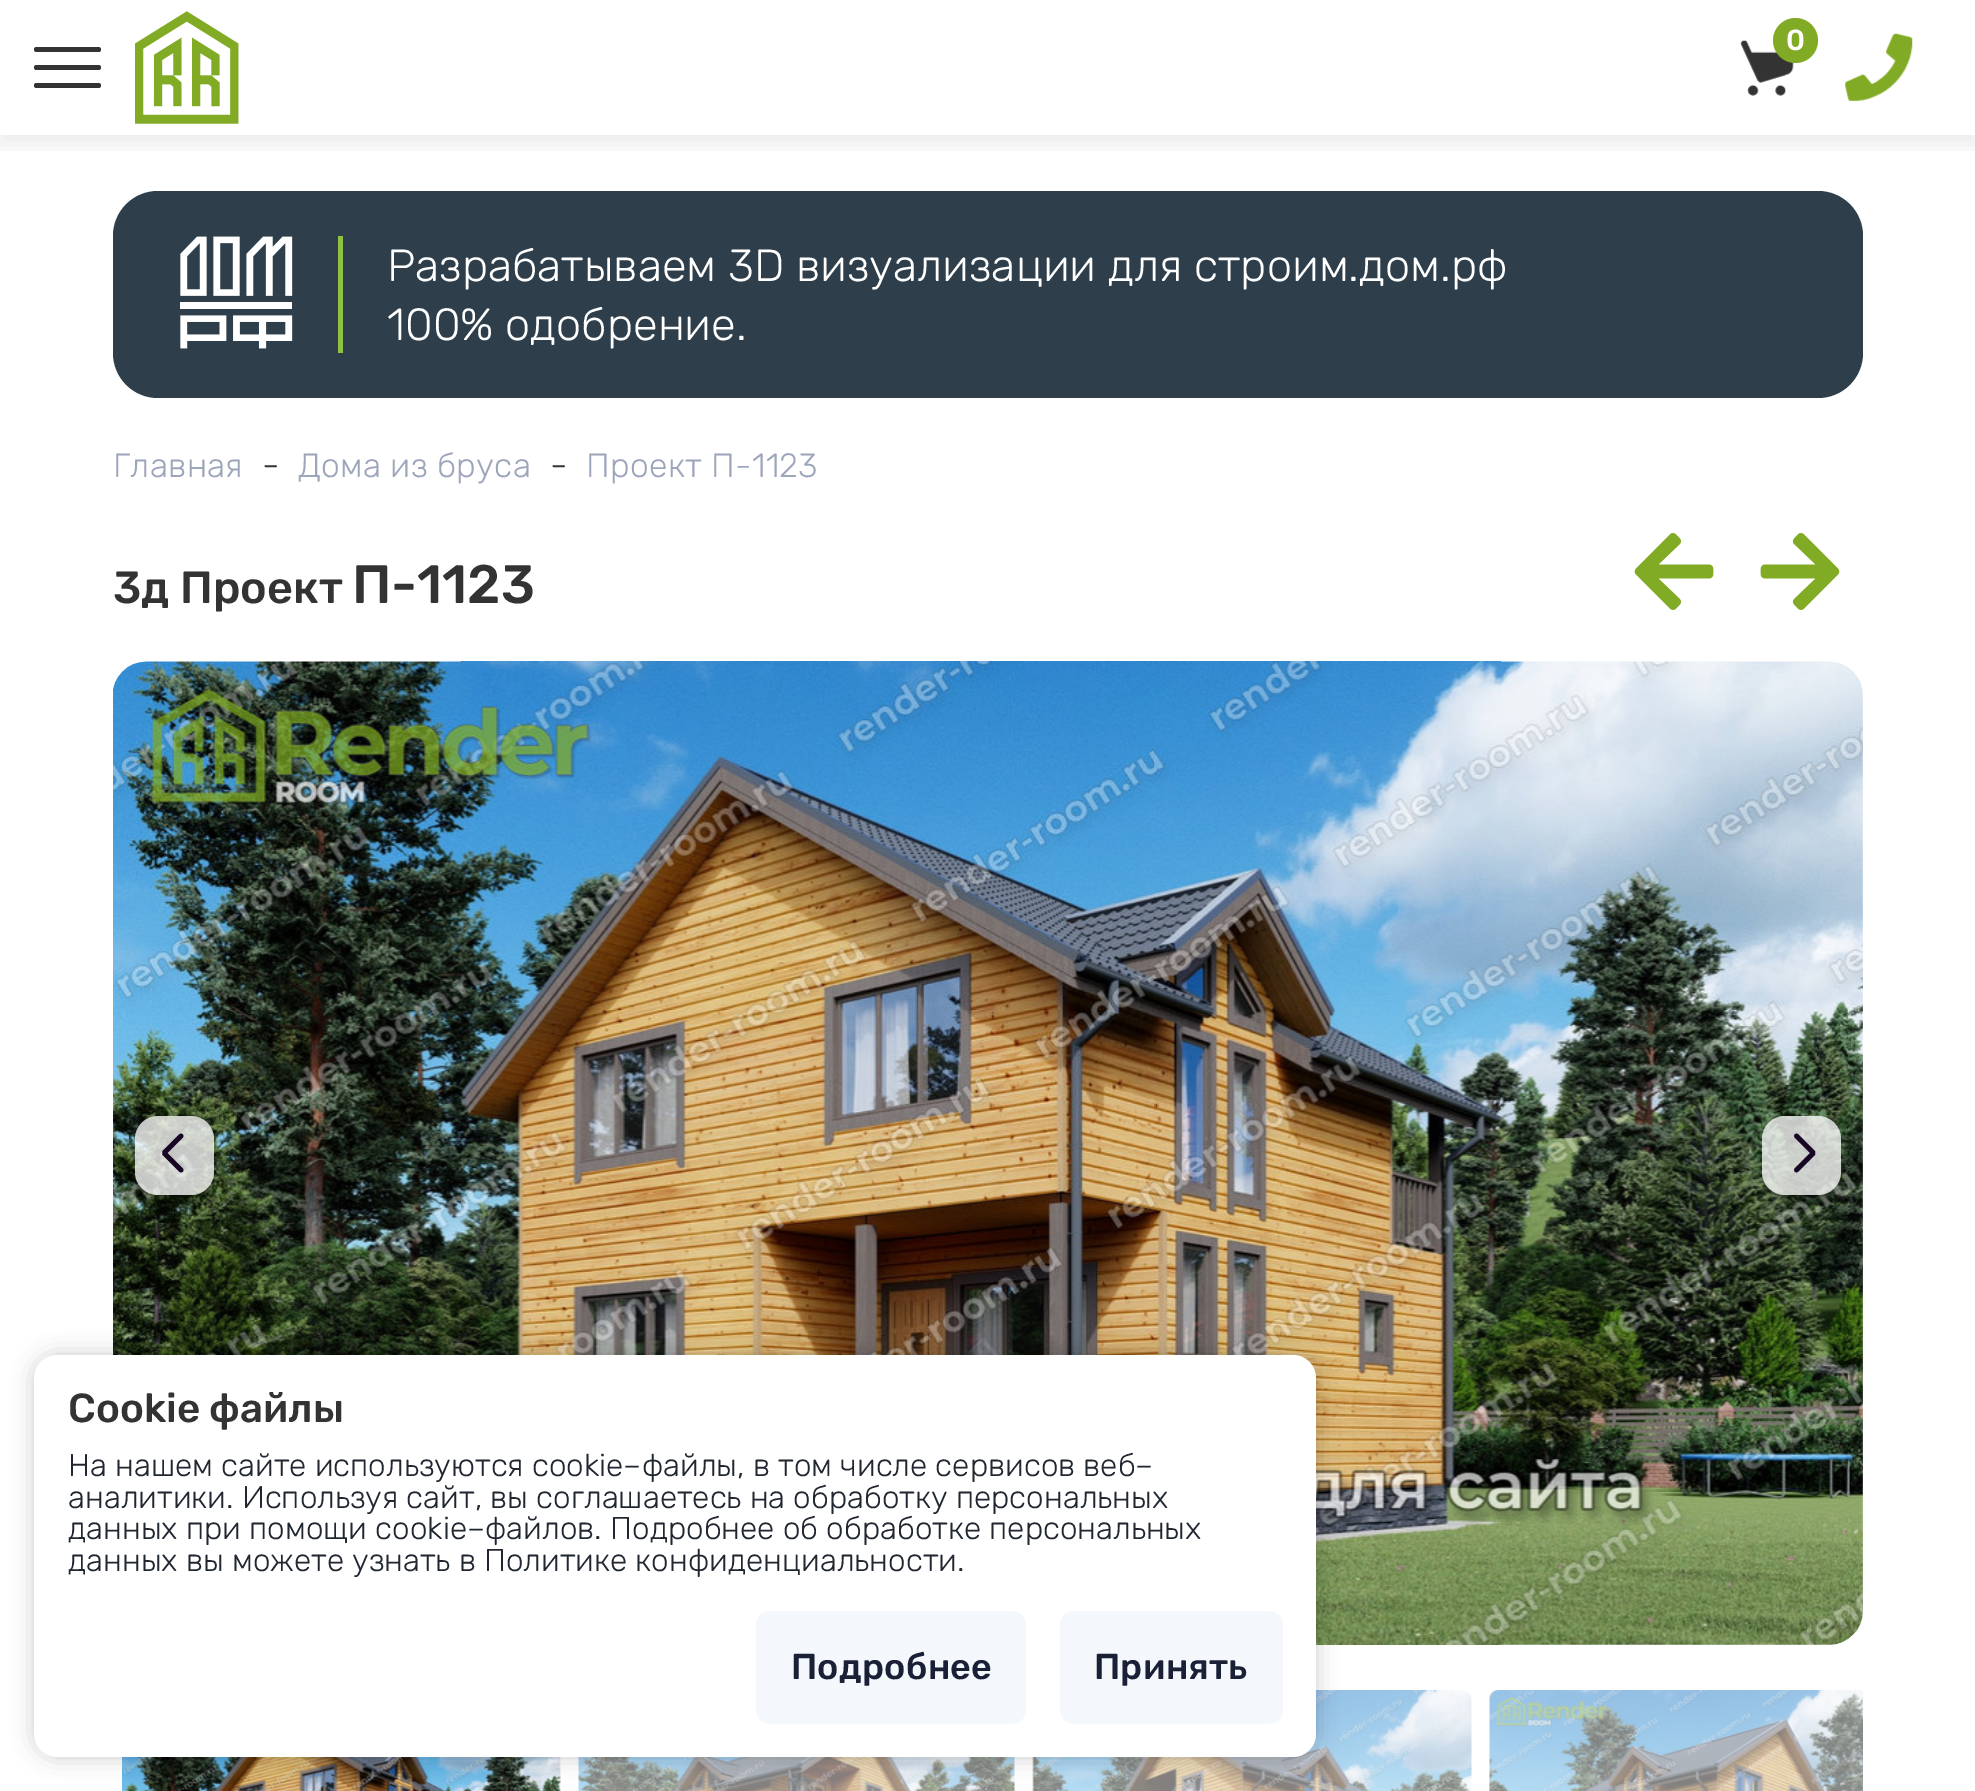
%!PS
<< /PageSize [1975 1791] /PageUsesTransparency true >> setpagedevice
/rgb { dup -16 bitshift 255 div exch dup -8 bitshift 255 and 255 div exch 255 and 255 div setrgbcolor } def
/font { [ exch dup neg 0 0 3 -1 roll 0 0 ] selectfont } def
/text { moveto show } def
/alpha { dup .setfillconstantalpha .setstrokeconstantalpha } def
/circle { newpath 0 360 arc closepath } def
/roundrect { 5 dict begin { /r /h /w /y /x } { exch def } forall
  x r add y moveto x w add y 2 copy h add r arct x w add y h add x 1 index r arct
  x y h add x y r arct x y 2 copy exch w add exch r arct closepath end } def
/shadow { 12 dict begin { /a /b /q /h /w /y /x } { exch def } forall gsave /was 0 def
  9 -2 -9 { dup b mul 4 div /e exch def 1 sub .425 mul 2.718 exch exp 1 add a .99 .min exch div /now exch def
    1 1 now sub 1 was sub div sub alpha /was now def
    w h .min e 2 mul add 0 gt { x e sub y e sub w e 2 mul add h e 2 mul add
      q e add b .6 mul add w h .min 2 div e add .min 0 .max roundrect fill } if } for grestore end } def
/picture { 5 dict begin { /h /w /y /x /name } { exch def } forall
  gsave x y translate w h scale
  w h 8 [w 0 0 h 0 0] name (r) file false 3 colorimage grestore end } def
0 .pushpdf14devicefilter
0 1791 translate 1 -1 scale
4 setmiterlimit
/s1 { /Rubik-Light 45 font 16#FFFFFF rgb } def
/s2 { /Rubik-Light 36 font 16#333333 rgb } def
/s3 { /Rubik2-Light 45 font 16#333333 rgb } def
/s4 { /Rubik2-Light 54 font 16#333333 rgb } def
/s5 { /Rubik2-Light 40.5 font 16#333333 rgb } def
/s6 { /Rubik-Light 31.5 font 16#212731 rgb } def
16#FFFFFF rgb
0 0 1975 1791 rectfill
gsave
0 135 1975 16 rectclip
16#000000 rgb
0 9 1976 135 0 11 0.08 shadow
grestore
(pic1.raw) 135 11 104 113 picture
(pic2.raw) 1740 40 54 56 picture
16#81AB24 rgb
1795.5 40.5 22.5 circle fill
/Rubik2-Light 29 font
16#FFFFFF rgb
1786 50 moveto 0.25 0 (0) ashow
(pic3.raw) 1845 33 68 69 picture
16#333333 rgb
34 47 67 5 2.5 roundrect fill
34 65 67 5 2.5 roundrect fill
34 83 67 5 2.5 roundrect fill
16#2E3F4B rgb
113 191 1750 207 45 roundrect fill
(pic4.raw) 180 236 113 113 picture
16#8FC243 rgb
338 236 5 117 rectfill
s1
(Разрабатываем 3D визуализации для строим.дом.рф) 387 281 text
(100% одобрение.) 387 340 text
/Rubik-Light 33.75 font
16#9CA5BA rgb
113 477 moveto 0.3 0 (Главная) ashow
s2
(-) 262 477 text
/Rubik-Light 33.75 font
16#9CA5BA rgb
298 477 moveto 0.3 0 (Дома из бруса) ashow
s2
(-) 550 477 text
/Rubik-Light 33.75 font
16#9CA5BA rgb
586 477 moveto 0.3 0 (Проект П-1123) ashow
s3
(3д Проект) 113 603 text
s4
(П-1123) 352 603 text
(pic5.raw) 1634 533 80 77 picture
(pic6.raw) 1760 533 80 77 picture
(pic7.raw) 113 661 1750 984 picture
gsave
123 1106 moveto 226 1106 lineto 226 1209 lineto 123 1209 lineto closepath 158 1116 moveto 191 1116 lineto 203.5 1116 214 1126.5 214 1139 curveto 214 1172 lineto 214 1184.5 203.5 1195 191 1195 curveto 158 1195 lineto 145.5 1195 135 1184.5 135 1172 curveto 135 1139 lineto 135 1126.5 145.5 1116 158 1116 curveto closepath eoclip newpath
16#000000 rgb
135 1118 79 79 23 3.5 0.12 shadow
grestore
gsave
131 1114 moveto 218 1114 lineto 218 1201 lineto 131 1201 lineto closepath 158 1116 moveto 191 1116 lineto 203.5 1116 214 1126.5 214 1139 curveto 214 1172 lineto 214 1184.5 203.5 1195 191 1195 curveto 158 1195 lineto 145.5 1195 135 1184.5 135 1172 curveto 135 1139 lineto 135 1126.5 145.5 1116 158 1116 curveto closepath eoclip newpath
16#000000 rgb
135 1118 79 79 23 1 0.14 shadow
grestore
gsave
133 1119 moveto 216 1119 lineto 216 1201 lineto 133 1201 lineto closepath 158 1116 moveto 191 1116 lineto 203.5 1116 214 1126.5 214 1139 curveto 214 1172 lineto 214 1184.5 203.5 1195 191 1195 curveto 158 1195 lineto 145.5 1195 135 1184.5 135 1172 curveto 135 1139 lineto 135 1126.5 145.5 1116 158 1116 curveto closepath eoclip newpath
16#000000 rgb
137 1123 75 74 20 1 0.2 shadow
grestore
0.77 alpha
16#FFFFFF rgb
135 1116 79 79 23 roundrect fill
1 alpha
16#170724 rgb
4.7 setlinewidth
1 setlinecap
2 setlinejoin
181 1136 moveto 164 1153 lineto 181 1170 lineto stroke
gsave
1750 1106 moveto 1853 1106 lineto 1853 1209 lineto 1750 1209 lineto closepath 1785 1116 moveto 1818 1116 lineto 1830.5 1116 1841 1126.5 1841 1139 curveto 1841 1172 lineto 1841 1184.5 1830.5 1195 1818 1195 curveto 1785 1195 lineto 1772.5 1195 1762 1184.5 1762 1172 curveto 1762 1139 lineto 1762 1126.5 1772.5 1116 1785 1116 curveto closepath eoclip newpath
16#000000 rgb
1762 1118 79 79 23 3.5 0.12 shadow
grestore
gsave
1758 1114 moveto 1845 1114 lineto 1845 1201 lineto 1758 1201 lineto closepath 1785 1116 moveto 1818 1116 lineto 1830.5 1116 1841 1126.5 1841 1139 curveto 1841 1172 lineto 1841 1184.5 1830.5 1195 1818 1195 curveto 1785 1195 lineto 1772.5 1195 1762 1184.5 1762 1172 curveto 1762 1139 lineto 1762 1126.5 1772.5 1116 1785 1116 curveto closepath eoclip newpath
16#000000 rgb
1762 1118 79 79 23 1 0.14 shadow
grestore
gsave
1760 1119 moveto 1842 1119 lineto 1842 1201 lineto 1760 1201 lineto closepath 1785 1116 moveto 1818 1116 lineto 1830.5 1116 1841 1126.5 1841 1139 curveto 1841 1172 lineto 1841 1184.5 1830.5 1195 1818 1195 curveto 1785 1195 lineto 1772.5 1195 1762 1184.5 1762 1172 curveto 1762 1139 lineto 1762 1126.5 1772.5 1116 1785 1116 curveto closepath eoclip newpath
16#000000 rgb
1764 1123 74 74 20 1 0.2 shadow
grestore
0.77 alpha
16#FFFFFF rgb
1762 1116 79 79 23 roundrect fill
1 alpha
16#170724 rgb
1796.5 1136 moveto 1813.5 1153 lineto 1796.5 1170 lineto stroke
(pic8.raw) 122 1757 439 34 picture
(pic9.raw) 578 1757 437 34 picture
(pic10.raw) 1032 1690 440 101 picture
(pic11.raw) 1489 1690 374 101 picture
16#000000 rgb
34 1355 1282 402 23 11 0.2 shadow
16#FFFFFF rgb
34 1355 1282 402 23 roundrect fill
s5
(Cookie файлы) 68 1422 text
s6
(На нашем сайте используются cookie–файлы, в том числе сервисов веб–) 68 1476 text
(аналитики. Используя сайт, вы соглашаетесь на обработку персональных) 68 1508 text
(данных при помощи cookie–файлов. Подробнее об обработке персональных) 68 1539 text
(данных вы можете узнать в Политике конфиденциальности.) 68 1571 text
16#F4F7FC rgb
756 1611 270 113 14 roundrect fill
/Rubik2-Light 36 font
16#1A2036 rgb
791 1679 moveto 0.25 0 (Подробнее) ashow
16#F4F7FC rgb
1060 1611 223 113 14 roundrect fill
16#1A2036 rgb
1094 1679 moveto 0.25 0 (Принять) ashow
.poppdf14devicefilter showpage
